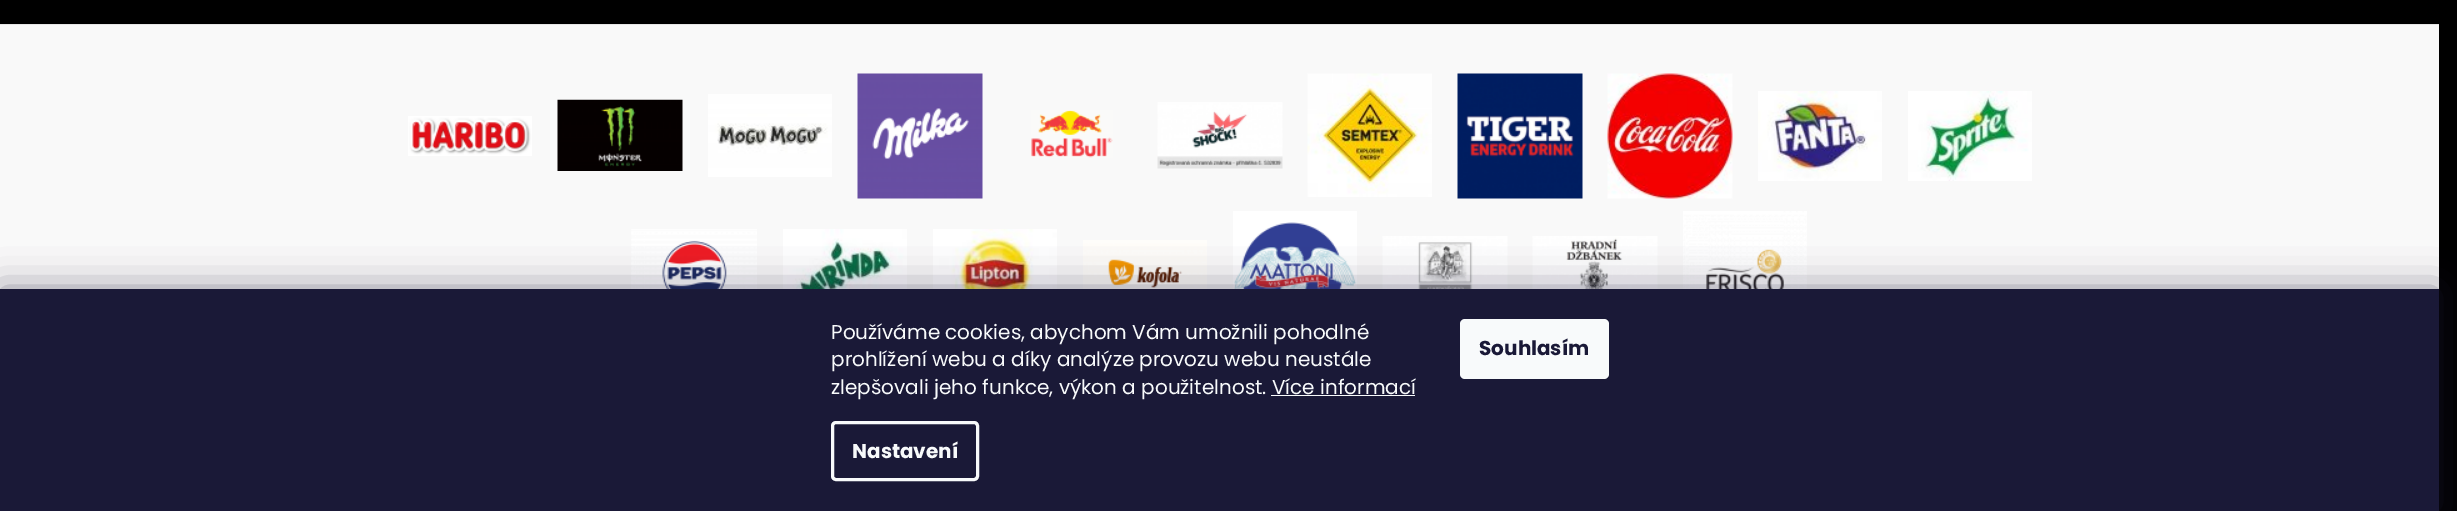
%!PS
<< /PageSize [2457 511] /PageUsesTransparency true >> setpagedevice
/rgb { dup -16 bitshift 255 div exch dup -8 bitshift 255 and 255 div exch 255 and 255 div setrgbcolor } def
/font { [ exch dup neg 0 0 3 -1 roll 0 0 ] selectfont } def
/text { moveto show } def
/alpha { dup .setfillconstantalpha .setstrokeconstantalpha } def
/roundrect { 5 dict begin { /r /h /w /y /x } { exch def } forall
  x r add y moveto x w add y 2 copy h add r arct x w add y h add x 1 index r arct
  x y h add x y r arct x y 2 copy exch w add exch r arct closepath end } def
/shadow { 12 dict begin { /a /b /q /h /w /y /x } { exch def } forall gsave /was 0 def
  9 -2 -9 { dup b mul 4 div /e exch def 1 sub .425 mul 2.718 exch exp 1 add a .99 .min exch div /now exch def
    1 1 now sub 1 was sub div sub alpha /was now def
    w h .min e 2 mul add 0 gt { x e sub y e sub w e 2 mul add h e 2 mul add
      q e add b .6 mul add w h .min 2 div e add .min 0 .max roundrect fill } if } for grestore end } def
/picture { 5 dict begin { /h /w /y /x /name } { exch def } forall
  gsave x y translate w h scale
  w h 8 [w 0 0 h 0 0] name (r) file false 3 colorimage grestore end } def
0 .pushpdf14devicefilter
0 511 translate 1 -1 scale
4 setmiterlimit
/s1 { /Poppins-Regular 20 font 16#F8FAFB rgb } def
/s2 { /Poppins-Bold 20 font 16#F8FAFB rgb } def
/s3 { /Poppins-Bold 20 font 16#1A1937 rgb } def
16#000000 rgb
0 0 2457 511 rectfill
16#F9F9F9 rgb
0 25 2439 264 rectfill
16#E6E6E6 rgb
0 24 2439 1 rectfill
(pic1.raw) 408 116 124 40 picture
(pic2.raw) 557 99 126 72 picture
(pic3.raw) 708 94 124 83 picture
(pic4.raw) 857 73 126 126 picture
(pic5.raw) 1031 110 82 48 picture
(pic6.raw) 1157 102 126 67 picture
(pic7.raw) 1307 73 125 124 picture
(pic8.raw) 1457 73 126 126 picture
(pic9.raw) 1607 73 126 126 picture
(pic10.raw) 1758 91 124 90 picture
(pic11.raw) 1908 91 124 90 picture
(pic12.raw) 631 229 126 60 picture
(pic13.raw) 783 229 124 60 picture
(pic14.raw) 933 229 124 60 picture
(pic15.raw) 1083 240 124 49 picture
(pic16.raw) 1233 211 124 78 picture
(pic17.raw) 1382 236 126 53 picture
(pic18.raw) 1532 236 126 53 picture
(pic19.raw) 1683 211 124 78 picture
16#1B1939 rgb
0 289 2439 222 0 19 0.5 shadow
16#1A1937 rgb
0 289 2439 222 rectfill
s1
(Používáme cookies, abychom Vám umožnili pohodlné) 831 339 text
(prohlížení webu a díky analýze provozu webu neustále) 831 366 text
(zlepšovali jeho funkce, výkon a použitelnost. Více informací) 831 394 text
1271 395 144 1 rectfill
3 setlinewidth
832.5 422.5 145 57 3.5 roundrect stroke
s2
(Nastavení) 852 458 text
1460 319 149 60 5 roundrect fill
s3
(Souhlasím) 1479 355 text
.poppdf14devicefilter showpage
